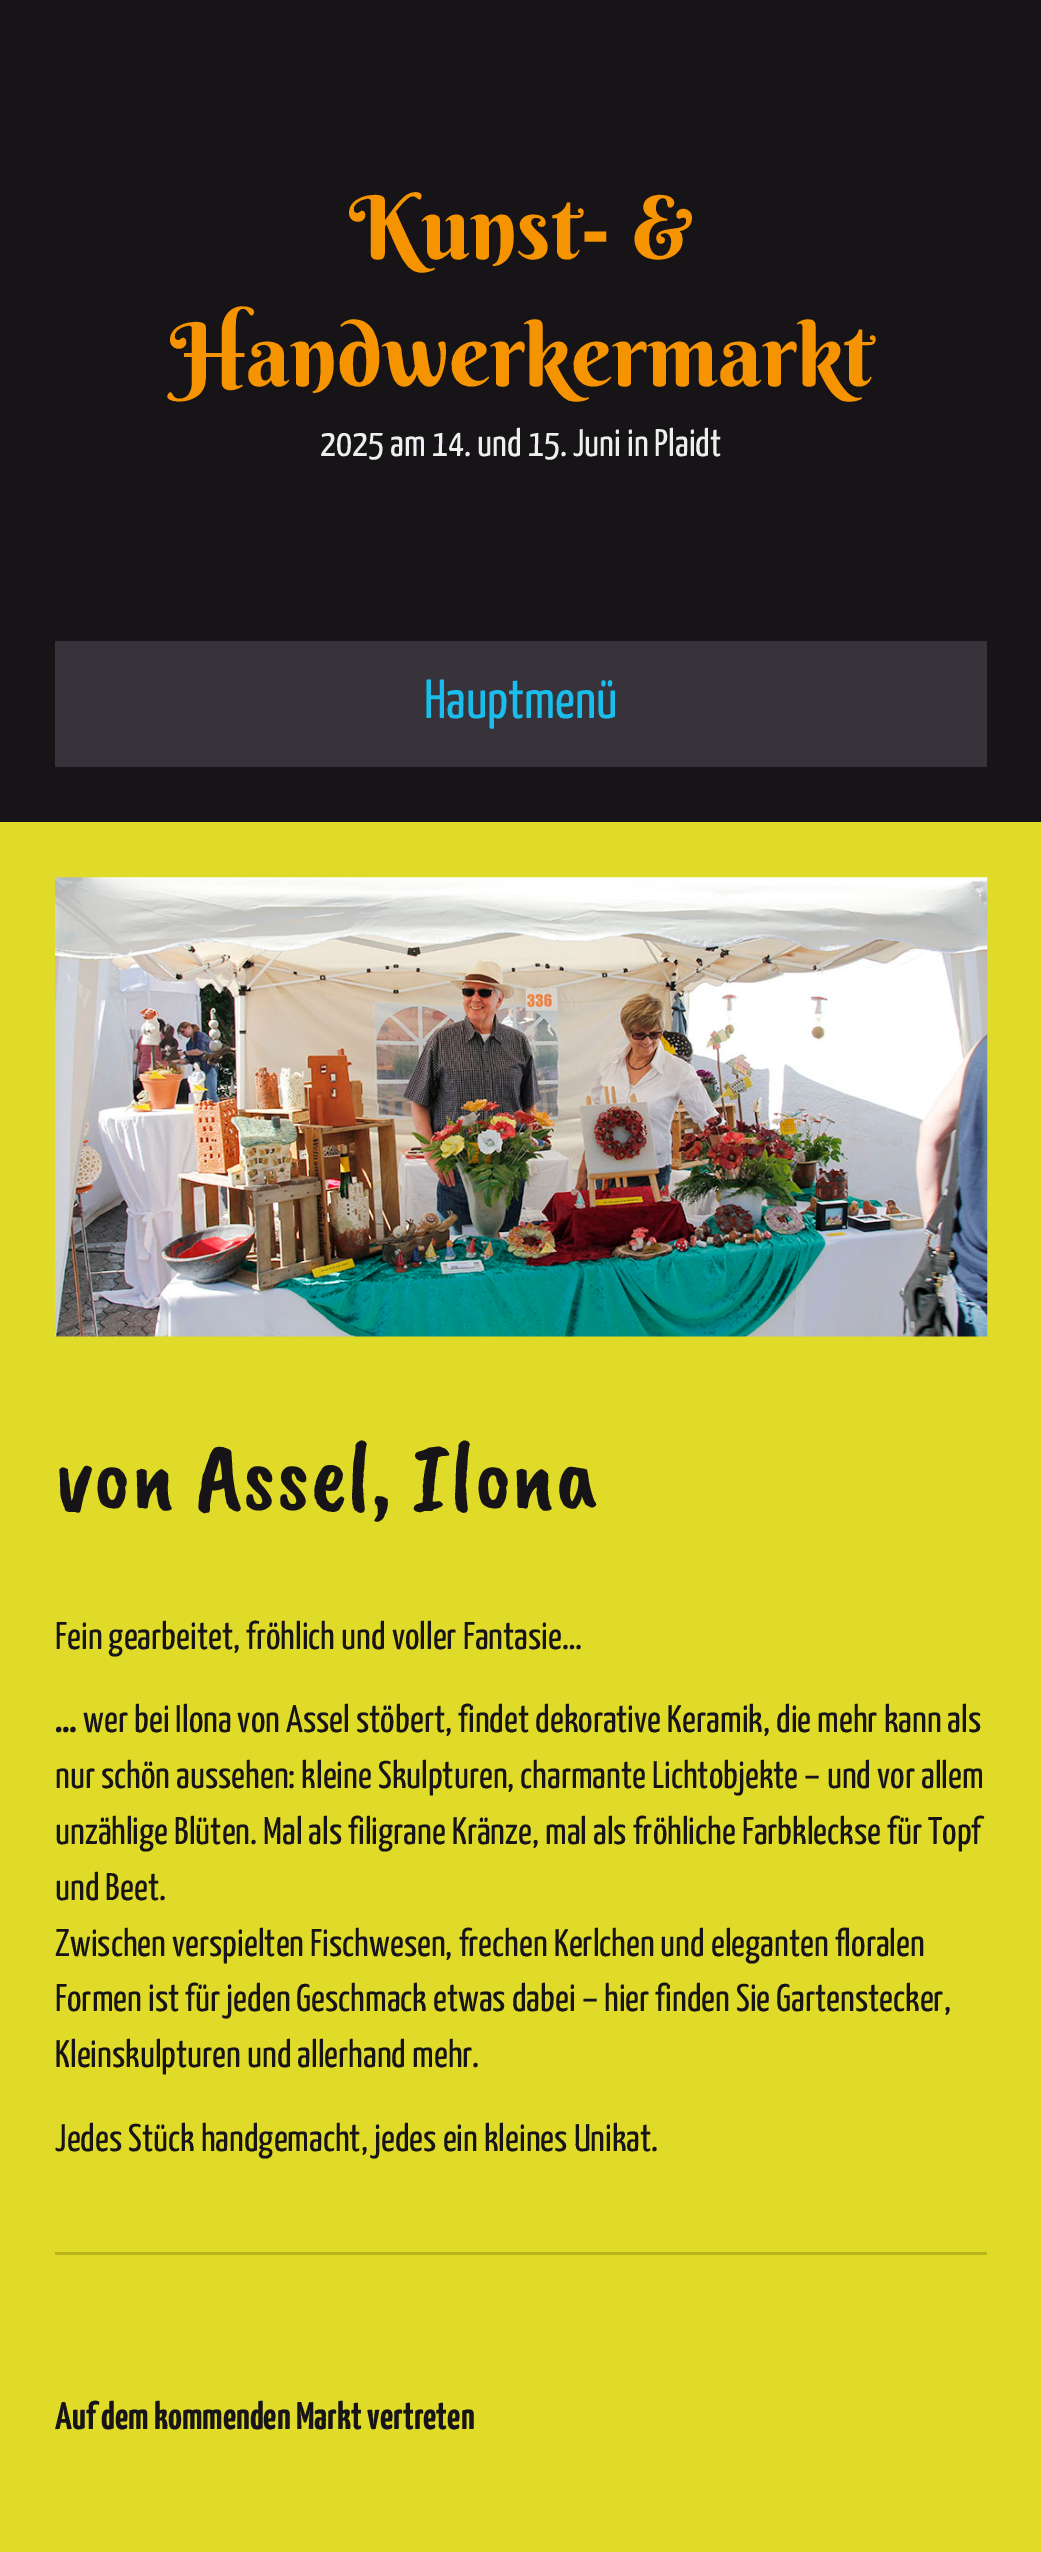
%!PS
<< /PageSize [1041 2552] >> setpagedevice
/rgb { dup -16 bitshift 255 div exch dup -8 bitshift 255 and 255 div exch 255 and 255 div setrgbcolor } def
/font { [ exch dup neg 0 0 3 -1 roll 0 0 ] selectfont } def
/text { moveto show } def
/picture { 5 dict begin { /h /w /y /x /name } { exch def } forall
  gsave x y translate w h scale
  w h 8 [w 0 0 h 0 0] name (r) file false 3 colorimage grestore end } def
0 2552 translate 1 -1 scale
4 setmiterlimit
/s1 { /BerkshireSwash-Regular 88 font 16#F59300 rgb } def
/s2 { /YanoneKaffeesatz-Regular 38.5 font 16#EEEEEE rgb } def
/s3 { /YanoneKaffeesatz-Regular 55 font 16#1ABDEB rgb } def
/s4 { /CaveatBrush-Regular 99 font 16#161417 rgb } def
/s5 { /YanoneKaffeesatz-Regular 38.5 font 16#161417 rgb } def
/s6 { /YanoneKaffeesatz-Bold 38.5 font 16#161417 rgb } def
16#E0DA29 rgb
0 0 1041 2552 rectfill
16#161417 rgb
0 0 1041 822 rectfill
s1
(Kunst- &) 349 259 text
(Handwerkermarkt) 170 386 text
s2
(2025 am 14. und 15. Juni in Plaidt) 320 456 text
16#38333A rgb
55 641 932 126 rectfill
s3
(Hauptmenü) 424 718 text
(pic1.raw) 55 877 933 460 picture
s4
(von Assel, Ilona) 55 1508 text
s5
(Fein gearbeitet, fröhlich und voller Fantasie…) 55 1649 text
s6
(…) 55 1732 text
s5
(wer bei Ilona von Assel stöbert, findet dekorative Keramik, die mehr kann als) 83 1732 text
(nur schön aussehen: kleine Skulpturen, charmante Lichtobjekte – und vor allem) 55 1788 text
(unzählige Blüten. Mal als filigrane Kränze, mal als fröhliche Farbkleckse für Topf) 55 1844 text
(und Beet.) 55 1900 text
(Zwischen verspielten Fischwesen, frechen Kerlchen und eleganten floralen) 55 1956 text
(Formen ist für jeden Geschmack etwas dabei – hier finden Sie Gartenstecker,) 55 2011 text
(Kleinskulpturen und allerhand mehr.) 55 2067 text
(Jedes Stück handgemacht, jedes ein kleines Unikat.) 55 2151 text
16#BBB61B rgb
55 2252 932 3 rectfill
s6
(Auf dem kommenden Markt vertreten) 55 2429 text
showpage
